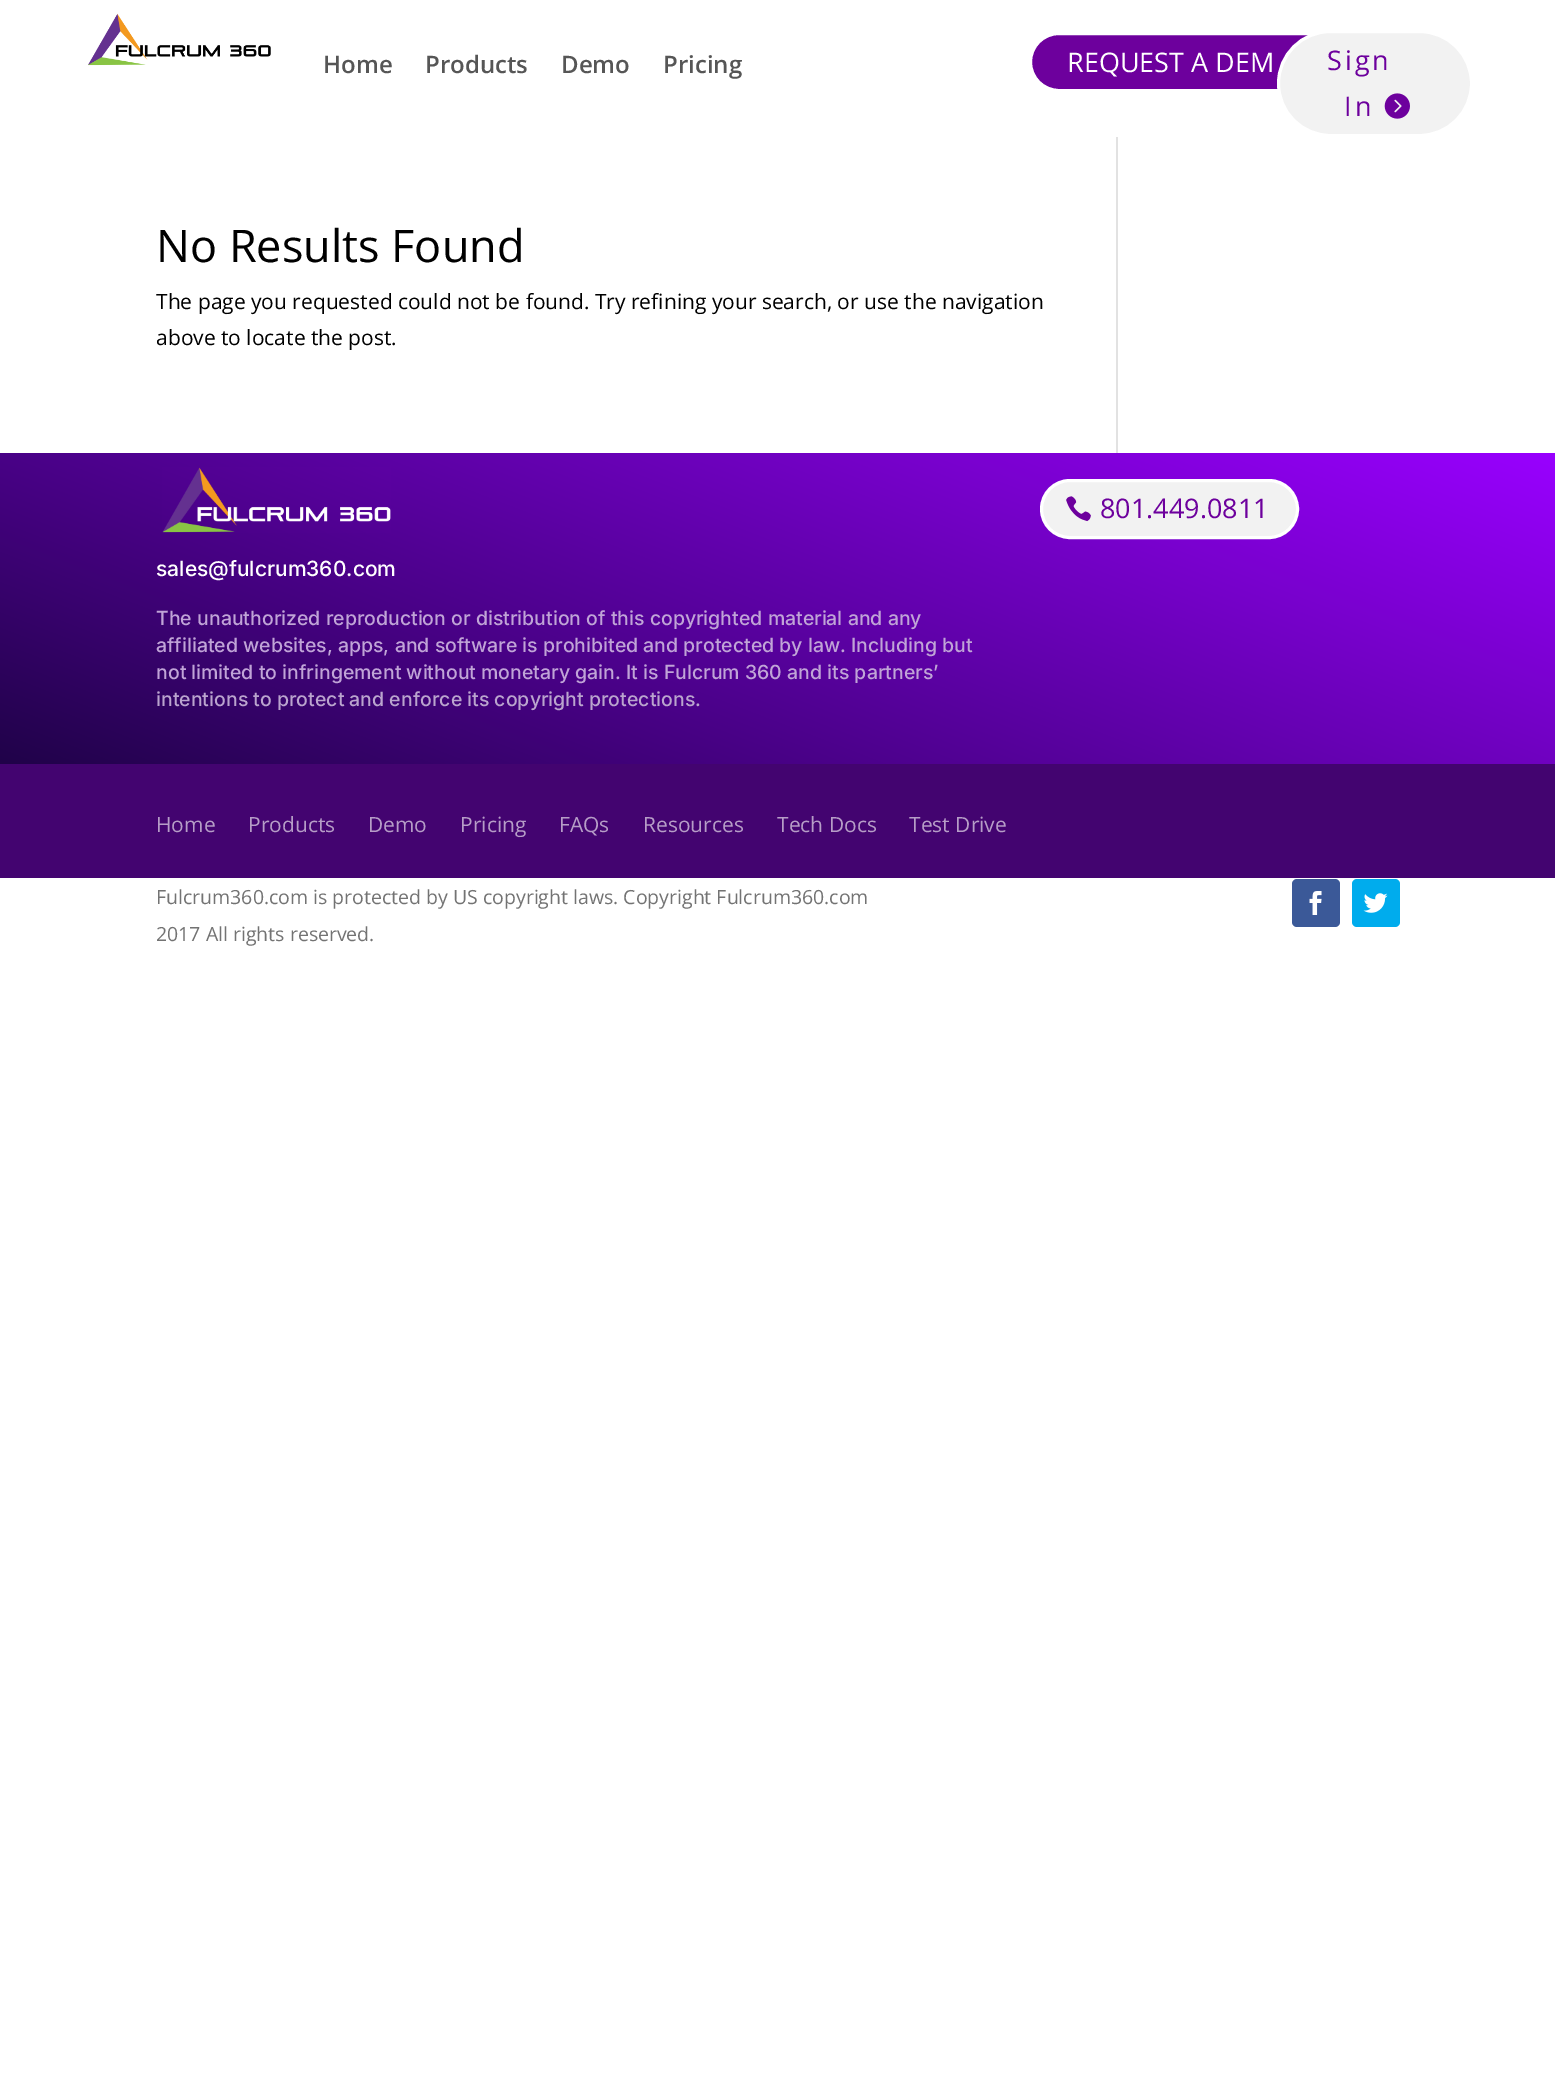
%!PS
<< /PageSize [1555 2094] >> setpagedevice
/rgb { dup -16 bitshift 255 div exch dup -8 bitshift 255 and 255 div exch 255 and 255 div setrgbcolor } def
/font { [ exch dup neg 0 0 3 -1 roll 0 0 ] selectfont } def
/text { moveto show } def
/roundrect { 5 dict begin { /r /h /w /y /x } { exch def } forall
  x r add y moveto x w add y 2 copy h add r arct x w add y h add x 1 index r arct
  x y h add x y r arct x y 2 copy exch w add exch r arct closepath end } def
/picture { 5 dict begin { /h /w /y /x /name } { exch def } forall
  gsave x y translate w h scale
  w h 8 [w 0 0 h 0 0] name (r) file false 3 colorimage grestore end } def
0 2094 translate 1 -1 scale
4 setmiterlimit
/s1 { /OpenSans-SemiBold 24 font 16#565656 rgb } def
/s2 { /OpenSans-Regular 27 font 16#FFFFFF rgb } def
/s3 { /OpenSans-Regular 45 font 16#000000 rgb } def
/s4 { /OpenSans-Regular 21 font 16#000000 rgb } def
/s5 { /OpenSans-Regular 27 font 16#6D009D rgb } def
/s6 { /Inter-Medium 21 font 16#FFFFFF rgb } def
/s7 { /Inter-Medium 19.5 font 16#C0A4D7 rgb } def
/s8 { /Inter-Medium 19.5 font 16#BAA4CE rgb } def
/s9 { /OpenSans-Regular 21 font 16#B69DC7 rgb } def
/s10 { /OpenSans-Regular 19.5 font 16#737373 rgb } def
16#FFFFFF rgb
0 0 1555 2094 rectfill
(pic1.raw) 88 13 183 53 picture
s1
(Home) 323 73 text
(Products) 425 73 text
(Demo) 561 73 text
(Pricing) 663 73 text
16#6D009D rgb
1030.5 33.5 303 57 28.5 roundrect gsave fill grestore
16#FFFFFF rgb
3 setlinewidth
stroke
s2
(REQUEST A DEM) 1067 72 text
16#F2F2F2 rgb
1278.5 31.5 193 104 52 roundrect gsave fill grestore
16#FFFFFF rgb
stroke
16#6D009D rgb
1327 70 moveto 3 0 (Sign) ashow
1344 116 moveto 3 0 (In) ashow
(pic2.raw) 1384 93 26 26 picture
s3
(No Results Found) 156 262 text
s4
(The page you requested could not be found. Try refining your search, or use the navigation) 156 309 text
(above to locate the post.) 156 345 text
16#E2E2E2 rgb
1116 137 2 316 rectfill
gsave 0 453 moveto 1555 453 lineto 1555 764 lineto 0 764 lineto closepath clip newpath
<< /ShadingType 2 /ColorSpace /DeviceRGB /Coords [930 213 626 1004] /Extend [true true] /Function << /FunctionType 2 /Domain [0 1] /C0 [0.6 0 1] /C1 [0.125 0.008 0.286] /N 1 >> >> shfill grestore
16#F2F2F2 rgb
1041.5 480.5 256 57 28.5 roundrect gsave fill grestore
16#FFFFFF rgb
stroke
(pic3.raw) 1066 496 25 26 picture
s5
(801.449.0811) 1100 518 text
(pic4.raw) 162 467 229 66 picture
s6
(sales@fulcrum360.com) 156 576 text
s7
(The unauthorized reproduction or distribution of this copyrighted material and any) 156 625 text
(affiliated websites, apps, and software is prohibited and protected by law. Including but) 156 652 text
(not limited to infringement without monetary gain. It is Fulcrum 360 and its partners’) 156 679 text
s8
(intentions to protect and enforce its copyright protections.) 156 706 text
16#430470 rgb
0 764 1555 114 rectfill
s9
(Home) 156 832 text
(Products) 248 832 text
(Demo) 368 832 text
(Pricing) 460 832 text
(FAQs) 559 832 text
(Resources) 643 832 text
(Tech Docs) 777 832 text
(Test Drive) 909 832 text
s10
(Fulcrum360.com is protected by US copyright laws. Copyright Fulcrum360.com) 156 904 text
(2017 All rights reserved.) 156 941 text
16#3B5998 rgb
1292 879 48 48 5 roundrect fill
(pic5.raw) 1309 891 13 24 picture
16#00ACED rgb
1352 879 48 48 5 roundrect fill
(pic6.raw) 1363 893 25 20 picture
showpage
